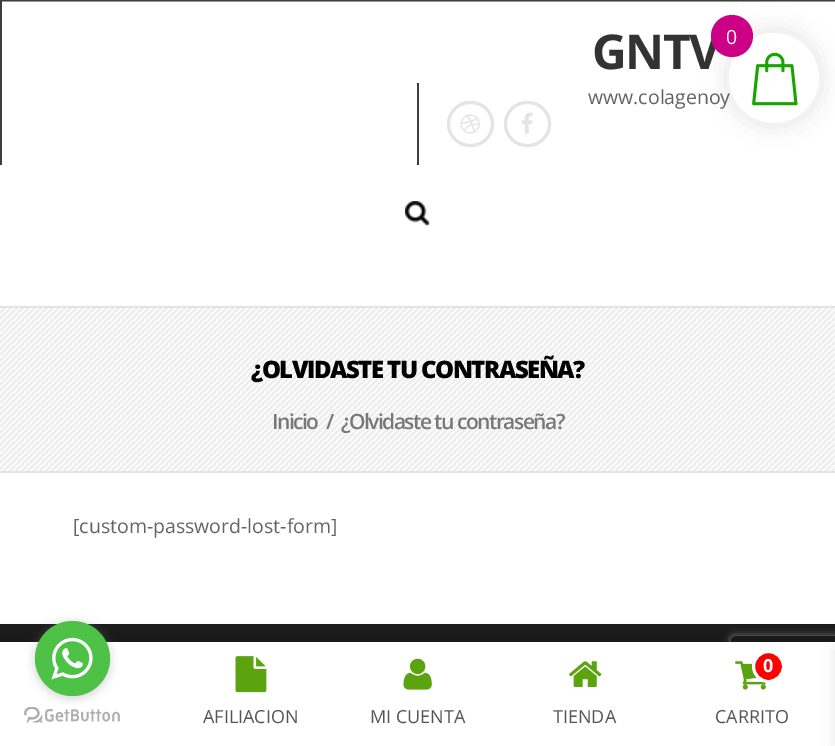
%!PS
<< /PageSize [835 746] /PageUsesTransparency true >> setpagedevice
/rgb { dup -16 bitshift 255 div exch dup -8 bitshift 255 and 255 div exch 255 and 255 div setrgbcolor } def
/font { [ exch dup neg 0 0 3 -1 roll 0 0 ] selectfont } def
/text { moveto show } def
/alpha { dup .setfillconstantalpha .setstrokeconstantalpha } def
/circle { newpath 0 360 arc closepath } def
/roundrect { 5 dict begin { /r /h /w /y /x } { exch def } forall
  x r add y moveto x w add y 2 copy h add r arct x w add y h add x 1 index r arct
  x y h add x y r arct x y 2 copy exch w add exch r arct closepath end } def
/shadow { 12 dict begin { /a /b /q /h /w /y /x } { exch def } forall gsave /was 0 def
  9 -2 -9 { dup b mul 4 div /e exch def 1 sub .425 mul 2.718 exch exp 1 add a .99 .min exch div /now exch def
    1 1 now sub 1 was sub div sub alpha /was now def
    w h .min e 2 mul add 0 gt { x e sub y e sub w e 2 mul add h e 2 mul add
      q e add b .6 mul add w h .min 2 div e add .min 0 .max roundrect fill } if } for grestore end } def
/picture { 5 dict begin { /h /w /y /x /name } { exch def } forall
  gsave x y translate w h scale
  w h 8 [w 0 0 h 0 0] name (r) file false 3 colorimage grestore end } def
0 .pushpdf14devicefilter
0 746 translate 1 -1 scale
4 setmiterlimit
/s1 { /OpenSans-Regular 19.5 font 16#636363 rgb } def
/s2 { /OpenSans-Regular 19.5 font 16#FFFFFF rgb } def
/s3 { /OpenSans-Regular 18 font 16#555555 rgb } def
/s4 { /OpenSans-Bold 18 font 16#FFFFFF rgb } def
16#FFFFFF rgb
0 0 835 746 rectfill
16#3D3D3D rgb
0 0 835 2 rectfill
(pic3.raw) 0 1 835 470 picture
16#FFFFFF rgb
0 2 835 304 rectfill
16#3D3D3D rgb
0 0 2 165 rectfill
417 83 2 82 rectfill
16#E4E4E4 rgb
3 setlinewidth
448.5 102.5 44 43 21.5 roundrect stroke
(pic1.raw) 460 114 20 20 picture
505.5 102.5 44 43 21.5 roundrect stroke
(pic2.raw) 521 112 12 22 picture
/OpenSans-Bold 48 font
16#333333 rgb
592 69 moveto -1.5 0 (GNTV) ashow
s1
(www.colagenoy) 588 104 text
(pic4.raw) 405 201 25 25 picture
16#E4E4E4 rgb
0 306 835 2 rectfill
0 471 835 2 rectfill
/OpenSans-ExtraBold 24 font
16#000000 rgb
251 378 moveto -1.5 0 (¿OLVIDASTE TU CONTRASEÑA?) ashow
/OpenSans-SemiBold 21 font
16#777777 rgb
272 429 moveto -1.5 0 (Inicio) ashow
326 429 moveto -1.5 0 (/  ¿Olvidaste tu contraseña?) ashow
s1
([custom-password-lost-form]) 73 533 text
16#1B1B1B rgb
0 624 835 18 rectfill
16#000000 rgb
726 30 96 96 48 11 0.1 shadow
16#FFFFFF rgb
774 78 45 circle fill
(pic5.raw) 752 52 46 54 picture
16#CC0086 rgb
732 36 21 circle fill
s2
(0) 726 44 text
gsave
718 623 moveto 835 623 lineto 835 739 lineto 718 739 lineto closepath 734 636 moveto 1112 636 lineto 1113.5 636 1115 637.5 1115 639 curveto 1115 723 lineto 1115 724.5 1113.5 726 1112 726 curveto 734 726 lineto 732.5 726 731 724.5 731 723 curveto 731 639 lineto 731 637.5 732.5 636 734 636 curveto closepath eoclip newpath
16#808080 rgb
731 636 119 90 3 4 1 shadow
grestore
16#000000 rgb
0 635 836 105 0 7.5 0.1 shadow
16#FFFFFF rgb
0 642 835 104 rectfill
16#000000 rgb
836 648 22 98 0 7.5 0.1 shadow
(pic7.raw) 24 707 96 16 picture
16#888888 rgb
35 623 75 75 37.5 5 0.4 shadow
16#4DC247 rgb
72.5 658.5 37.5 circle fill
(pic6.raw) 51 637 42 43 picture
(pic8.raw) 235 656 32 37 picture
s3
(AFILIACION) 203 723 text
(pic9.raw) 403 658 29 32 picture
(MI CUENTA) 370 723 text
(pic10.raw) 569 661 33 26 picture
(TIENDA) 553 723 text
(pic11.raw) 735 661 31 29 picture
16#FF0000 rgb
768.5 666.5 15 circle gsave fill grestore
16#FFFFFF rgb
stroke
s4
(0) 763 672 text
s3
(CARRITO) 715 723 text
.poppdf14devicefilter showpage
